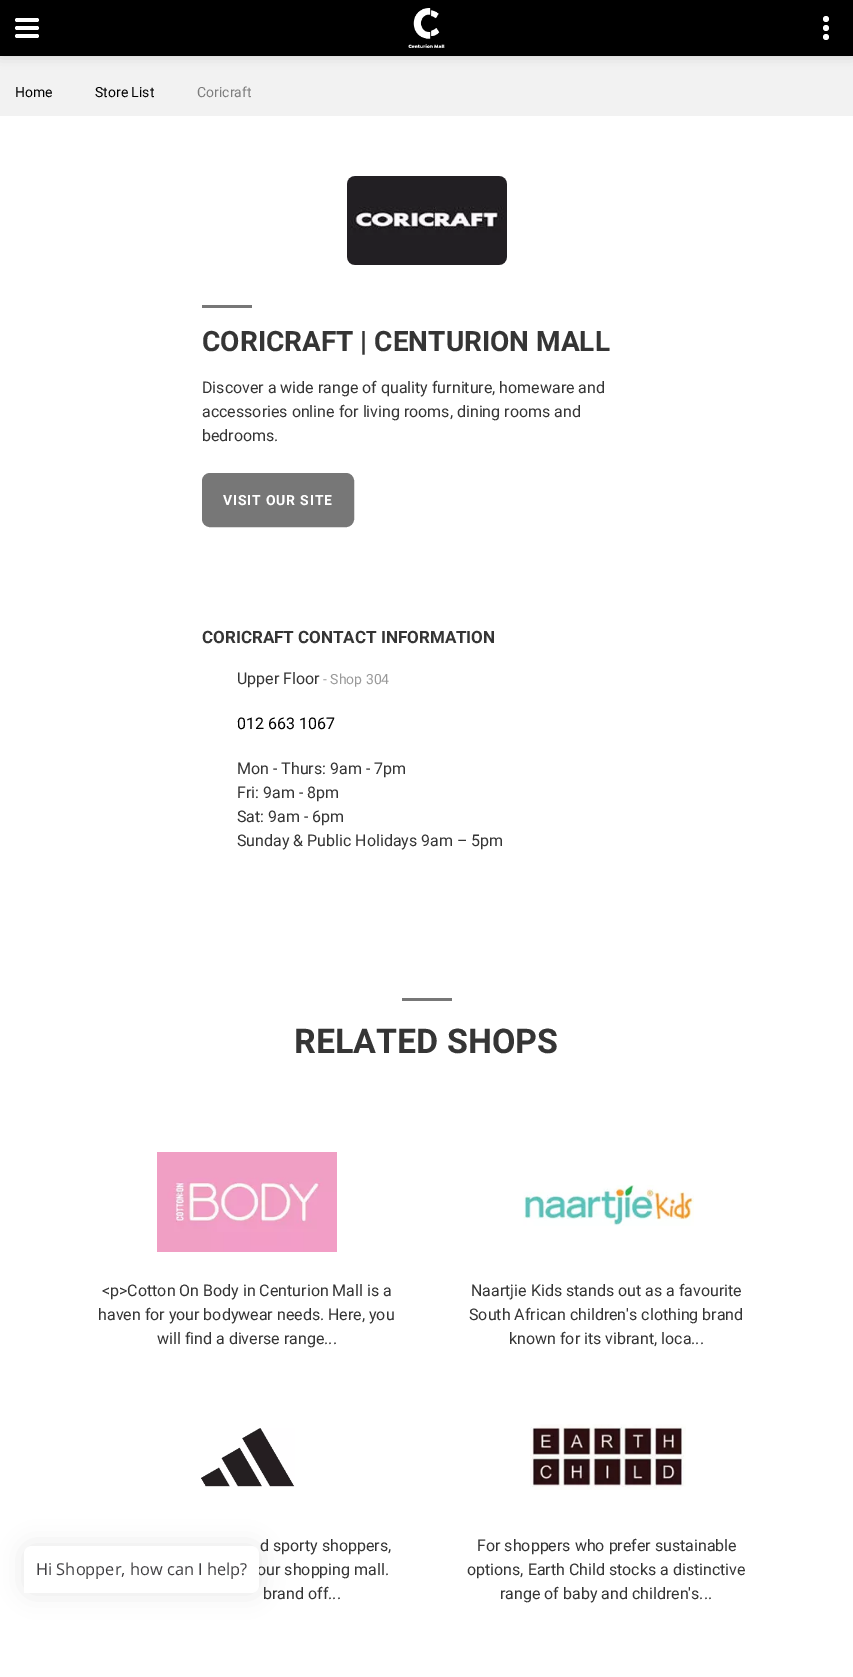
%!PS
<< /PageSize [853 1677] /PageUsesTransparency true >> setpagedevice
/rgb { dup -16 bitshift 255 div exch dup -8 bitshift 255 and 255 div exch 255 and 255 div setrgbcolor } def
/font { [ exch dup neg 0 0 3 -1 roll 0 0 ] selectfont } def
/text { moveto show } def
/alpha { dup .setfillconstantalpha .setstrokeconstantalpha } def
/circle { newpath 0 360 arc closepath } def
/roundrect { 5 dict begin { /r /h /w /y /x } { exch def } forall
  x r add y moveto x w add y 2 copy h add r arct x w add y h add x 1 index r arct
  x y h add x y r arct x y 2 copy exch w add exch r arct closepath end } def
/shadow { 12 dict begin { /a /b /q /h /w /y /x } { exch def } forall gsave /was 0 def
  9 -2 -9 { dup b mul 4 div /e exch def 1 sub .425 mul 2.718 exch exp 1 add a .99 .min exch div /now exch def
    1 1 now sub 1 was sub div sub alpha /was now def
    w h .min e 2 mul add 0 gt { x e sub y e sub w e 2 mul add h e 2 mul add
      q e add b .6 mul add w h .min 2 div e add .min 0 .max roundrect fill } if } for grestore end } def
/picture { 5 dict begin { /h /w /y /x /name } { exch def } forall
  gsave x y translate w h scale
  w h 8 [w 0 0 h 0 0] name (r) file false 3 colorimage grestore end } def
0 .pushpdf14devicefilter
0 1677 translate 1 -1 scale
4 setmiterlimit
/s1 { /Roboto-Regular 14 font 16#000000 rgb } def
/s2 { /Roboto-Regular 14 font 16#7D7D7D rgb } def
/s3 { /Roboto-Bold 28 font 16#353535 rgb } def
/s4 { /Roboto-Regular 16 font 16#353535 rgb } def
/s5 { /Roboto-Bold 17 font 16#353535 rgb } def
/s6 { /Roboto-Regular 14 font 16#999999 rgb } def
/s7 { /Roboto-Regular 16 font 16#000000 rgb } def
/s8 { /Roboto-Bold 34 font 16#353535 rgb } def
/s9 { /OpenSans-Regular 16.4 font 16#403F42 rgb } def
16#FFFFFF rgb
0 0 853 1677 rectfill
16#F2F2F2 rgb
0 56 853 60 rectfill
16#000000 rgb
1 1 851 54 0 6.5 0.17 shadow
0 0 853 56 rectfill
16#FFFFFF rgb
37 30 moveto 17 30 lineto 16 30 15 29 15 28 curveto 15 27 16 26 17 26 curveto 37 26 lineto 38 26 39 27 39 28 curveto 39 29 38 30 37 30 curveto closepath 37 38 moveto 17 38 lineto 16 38 15 37 15 36 curveto 15 35 16 34 17 34 curveto 37 34 lineto 38 34 39 35 39 36 curveto 39 37 38 38 37 38 curveto closepath 37 22 moveto 17 22 lineto 16 22 15 21 15 20 curveto 15 19 16 18 17 18 curveto 37 18 lineto 38 18 39 19 39 20 curveto 39 21 38 22 37 22 curveto closepath fill
(pic1.raw) 408 8 37 40 picture
826 28 3 circle fill
826 19 3 circle fill
826 37 3 circle fill
s1
(Home) 15 97 text
(Store List) 95 97 text
s2
(Coricraft) 197 97 text
(pic2.raw) 347 176 160 89 picture
16#777777 rgb
202 305 50 3 rectfill
s3
(CORICRAFT | CENTURION MALL) 202 351 text
s4
(Discover a wide range of quality furniture, homeware and) 202 393 text
(accessories online for living rooms, dining rooms and) 202 417 text
(bedrooms.) 202 441 text
16#777777 rgb
203 474 150 52 7 roundrect gsave fill grestore
2 setlinewidth
stroke
/Roboto-Bold 14 font
16#FFFFFF rgb
223 505 moveto 0.8 0 (VISIT OUR SITE) ashow
s5
(CORICRAFT CONTACT INFORMATION) 202 643 text
s4
(Upper Floor) 237 684 text
s6
(- Shop 304) 323 684 text
s7
(012 663 1067) 237 729 text
s4
(Mon - Thurs: 9am - 7pm) 237 774 text
(Fri: 9am - 8pm) 237 798 text
(Sat: 9am - 6pm) 237 822 text
(Sunday & Public Holidays 9am – 5pm) 237 846 text
16#777777 rgb
402 998 50 3 rectfill
s8
(RELATED SHOPS) 294 1053 text
(pic3.raw) 157 1152 180 100 picture
s4
(<p>Cotton On Body in Centurion Mall is a) 102 1296 text
(haven for your bodywear needs. Here, you) 98 1320 text
(will find a diverse range...) 157 1344 text
(pic4.raw) 523 1185 171 41 picture
(Naartjie Kids stands out as a favourite) 471 1296 text
(South African children's clothing brand) 469 1320 text
(known for its vibrant, loca...) 509 1344 text
(pic5.raw) 201 1428 94 59 picture
(d sporty shoppers,) 260 1551 text
(our shopping mall.) 257 1575 text
(brand off...) 263 1599 text
(pic6.raw) 530 1424 156 66 picture
(For shoppers who prefer sustainable) 477 1551 text
(options, Earth Child stocks a distinctive) 467 1575 text
(range of baby and children's...) 500 1599 text
16#403F42 rgb
24 1546 235 47 8 12 0.12 shadow
16#FFFFFF rgb
32 1546 moveto 251 1546 lineto 255.5 1546 259 1549.5 259 1554 curveto 259 1585 lineto 259 1589.5 255.5 1593 251 1593 curveto 24 1593 lineto 24 1554 lineto 24 1549.5 27.5 1546 32 1546 curveto closepath fill
s9
(Hi Shopper, how can I help?) 36 1575 text
.poppdf14devicefilter showpage
